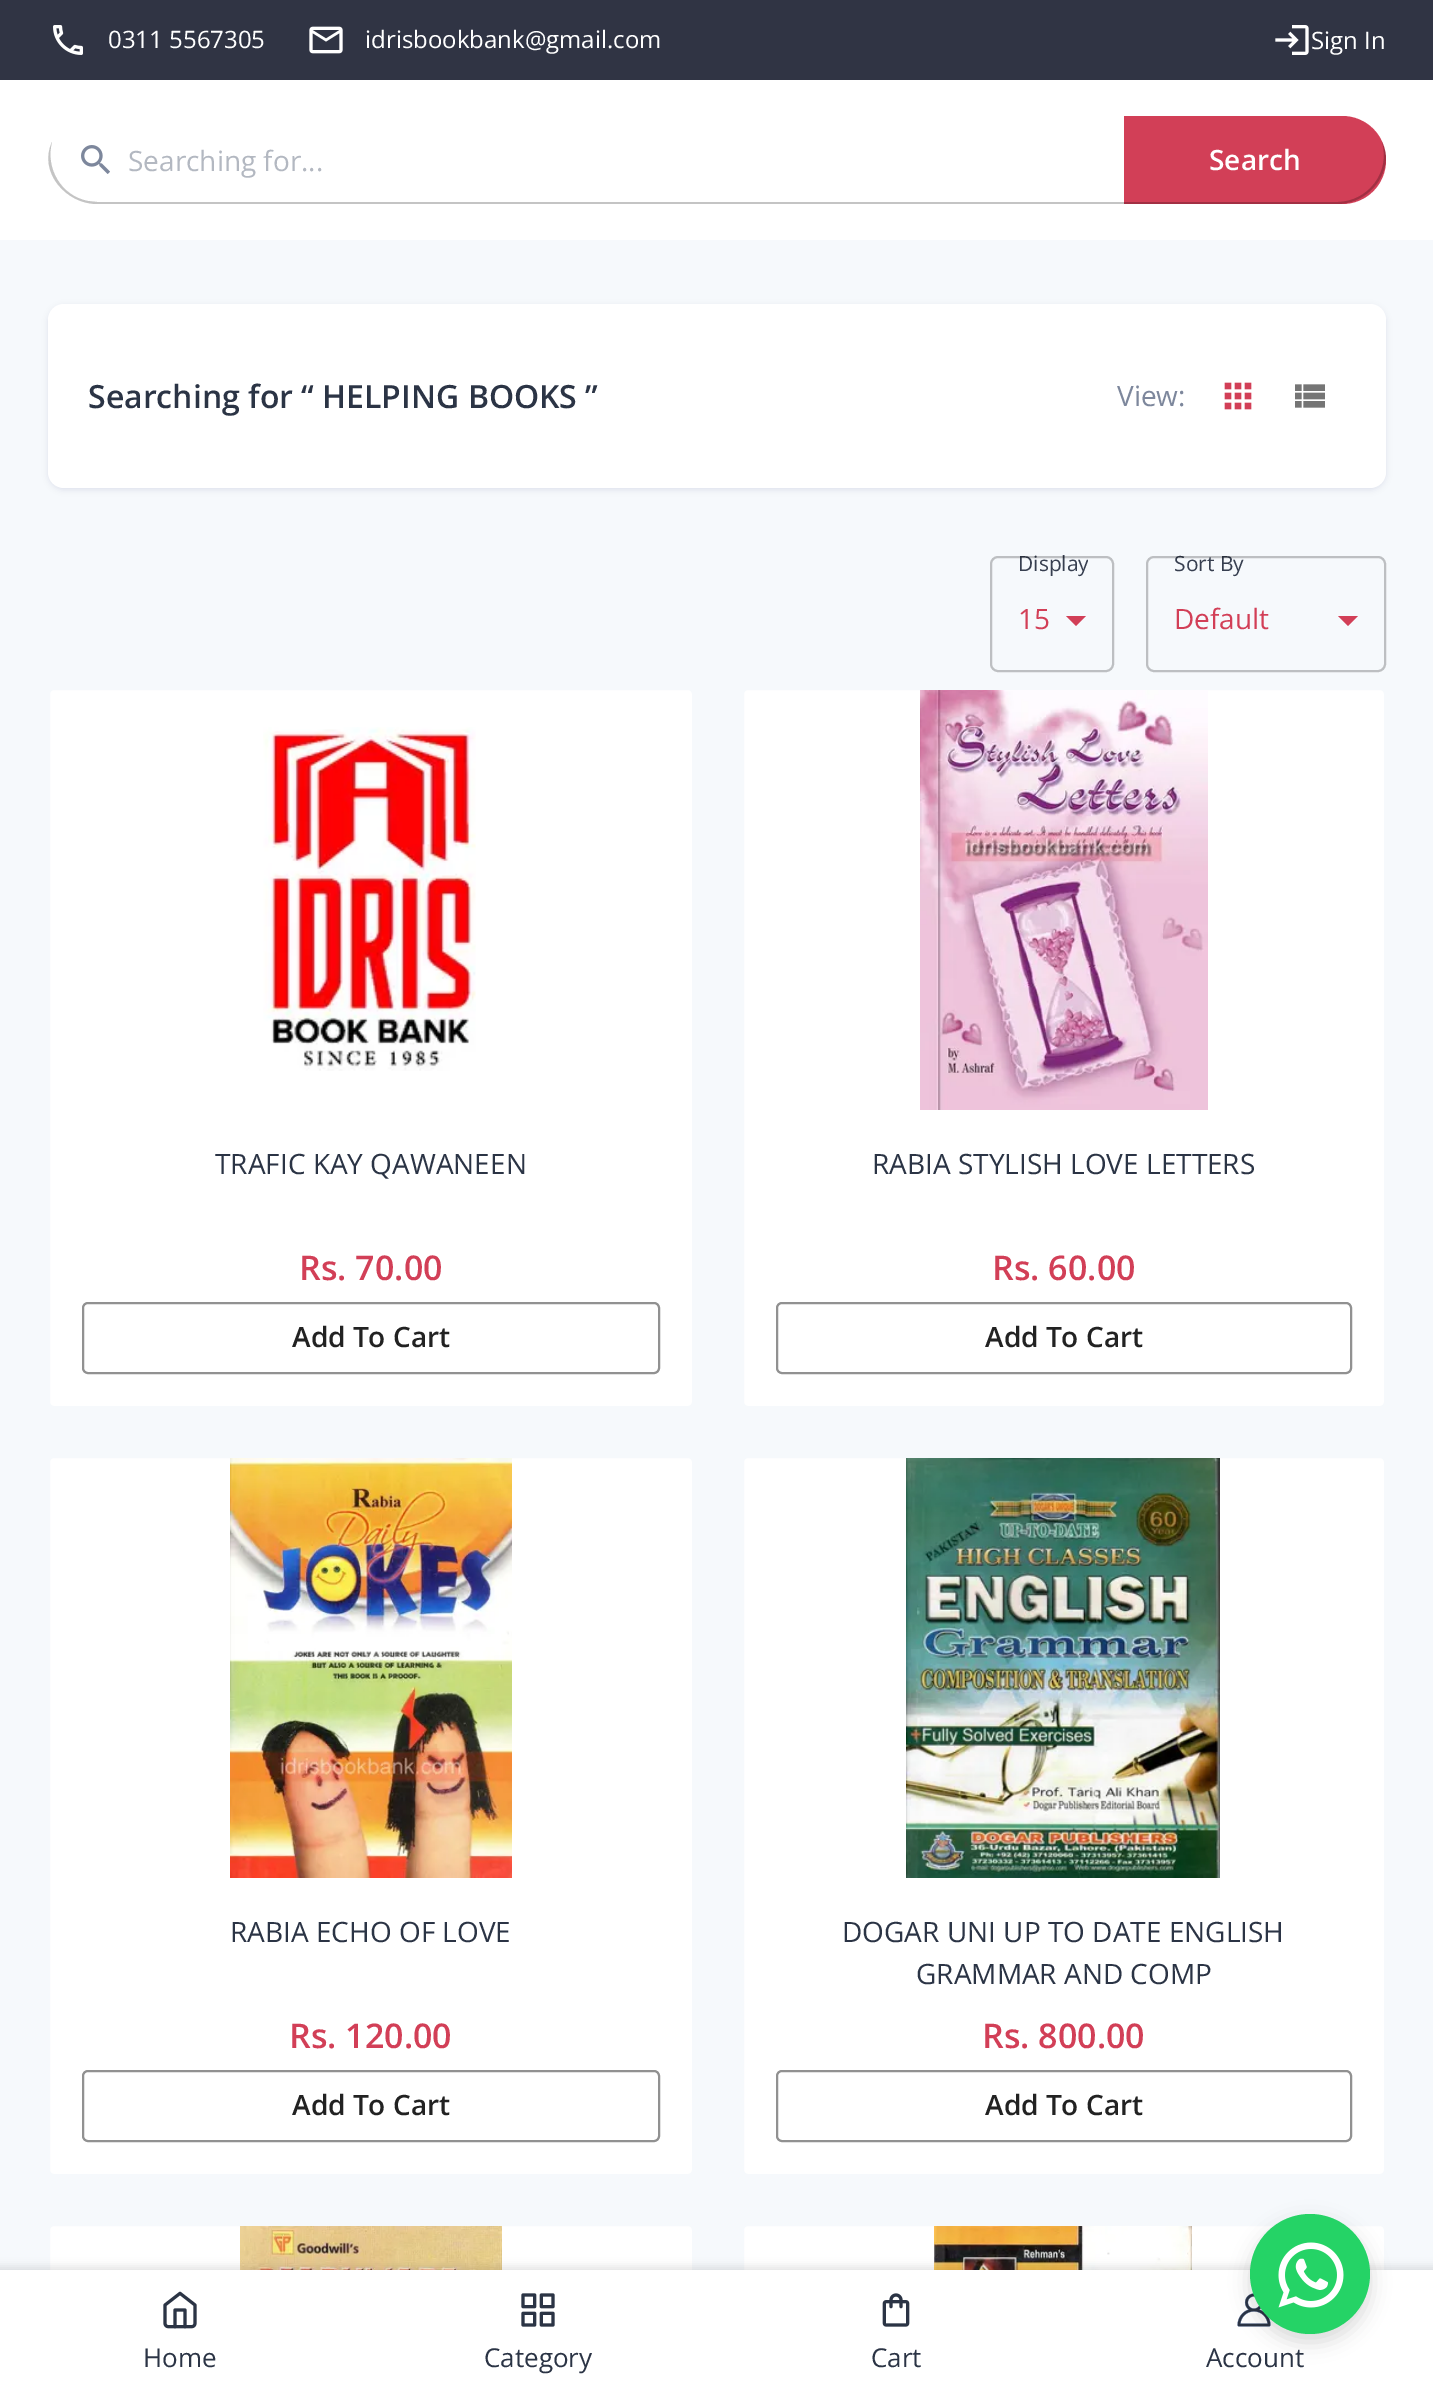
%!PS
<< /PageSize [1433 2397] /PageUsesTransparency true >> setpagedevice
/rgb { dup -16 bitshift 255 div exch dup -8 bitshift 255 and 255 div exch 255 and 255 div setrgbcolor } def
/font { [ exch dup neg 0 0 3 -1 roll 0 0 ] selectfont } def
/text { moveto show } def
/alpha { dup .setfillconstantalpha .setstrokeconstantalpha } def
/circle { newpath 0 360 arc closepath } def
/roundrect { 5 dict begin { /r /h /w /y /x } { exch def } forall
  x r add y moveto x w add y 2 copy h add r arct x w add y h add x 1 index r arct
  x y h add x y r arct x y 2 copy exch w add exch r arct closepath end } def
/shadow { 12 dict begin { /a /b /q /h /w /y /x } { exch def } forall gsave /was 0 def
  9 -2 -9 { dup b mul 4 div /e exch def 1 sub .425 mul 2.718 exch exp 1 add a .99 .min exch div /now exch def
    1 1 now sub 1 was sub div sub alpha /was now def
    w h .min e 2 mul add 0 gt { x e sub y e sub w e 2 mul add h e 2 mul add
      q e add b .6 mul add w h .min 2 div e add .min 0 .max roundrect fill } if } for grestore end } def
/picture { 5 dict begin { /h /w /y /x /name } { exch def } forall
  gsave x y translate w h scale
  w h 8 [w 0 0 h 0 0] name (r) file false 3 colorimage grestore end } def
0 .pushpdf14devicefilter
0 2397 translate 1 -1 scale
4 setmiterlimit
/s1 { /OpenSans-Regular 24 font 16#FFFFFF rgb } def
/s2 { /OpenSans-Regular 28 font 16#B3B8C1 rgb } def
/s3 { /OpenSans-SemiBold 28 font 16#FFFFFF rgb } def
/s4 { /OpenSans-SemiBold 32 font 16#2B3445 rgb } def
/s5 { /OpenSans-Regular 28 font 16#7D879C rgb } def
/s6 { /OpenSans-Regular 21 font 16#373F50 rgb } def
/s7 { /OpenSans-Regular 28 font 16#D23F57 rgb } def
/s8 { /OpenSans-Regular 28 font 16#2B3445 rgb } def
/s9 { /OpenSans-SemiBold 34 font 16#D23F57 rgb } def
/s10 { /OpenSans-SemiBold 28 font 16#222222 rgb } def
/s11 { /OpenSans-Regular 26 font 16#2B3445 rgb } def
16#F6F9FC rgb
0 0 1433 2397 rectfill
16#303444 rgb
0 0 1433 80 rectfill
(pic1.raw) 53 25 30 30 picture
s1
(0311 5567305) 108 48 text
(pic2.raw) 309 26 34 28 picture
(idrisbookbank@gmail.com) 365 48 text
(pic3.raw) 1275 25 34 30 picture
(Sign In) 1311 49 text
0 80 1433 160 rectfill
(pic4.raw) 81 145 29 29 picture
s2
(Searching for...) 128 171 text
16#D23F57 rgb
1124 116 moveto 1342 116 lineto 1366.5 116 1386 135.5 1386 160 curveto 1386 184.5 1366.5 204 1342 204 curveto 1124 204 lineto closepath fill
s3
(Search) 1209 170 text
0.23 alpha
16#000000 rgb
97 204 moveto 1337 204 lineto 1363 204 1385 183 1386 158 curveto 1386 152 1384 147 1382 142 curveto 1391 172 1368 202 1337 202 curveto 97 202 lineto 88 201 lineto 61 196 45 168 52 142 curveto 38 172 66 204 97 204 curveto closepath fill
1 alpha
16#030047 rgb
48 306 1338 184 16 3 0.09 shadow
16#FFFFFF rgb
48 304 1338 184 16 roundrect fill
s4
(Searching for “ HELPING BOOKS ”) 88 408 text
s5
(View:) 1117 406 text
(pic5.raw) 1224 382 28 28 picture
(pic6.raw) 1295 384 30 24 picture
gsave
1018 548 70 30 rectclip
s6
(Display) 1018 571 text
grestore
16#D23F57 rgb
1066 616 moveto 1076 626 lineto 1086 616 lineto closepath fill
0.23 alpha
16#000000 rgb
2 setlinewidth
991 557 122 114 7 roundrect stroke
1 alpha
s7
(15) 1018 629 text
s6
(Sort By) 1174 571 text
16#D23F57 rgb
1338 616 moveto 1348 626 lineto 1358 616 lineto closepath fill
0.23 alpha
16#000000 rgb
1147 557 238 114 7 roundrect stroke
1 alpha
s7
(Default) 1174 629 text
16#FFFFFF rgb
49 689 644 718 5 roundrect gsave fill grestore
16#F6F9FC rgb
stroke
(pic7.raw) 263 727 213 344 picture
s8
(TRAFIC KAY QAWANEEN) 215 1174 text
s9
(Rs. 70.00) 299 1280 text
16#919191 rgb
83 1303 576 70 5 roundrect stroke
s10
(Add To Cart) 292 1347 text
16#FFFFFF rgb
743 689 642 718 5 roundrect gsave fill grestore
16#F6F9FC rgb
stroke
(pic8.raw) 920 690 288 420 picture
s8
(RABIA STYLISH LOVE LETTERS) 872 1174 text
s9
(Rs. 60.00) 992 1280 text
16#919191 rgb
777 1303 574 70 5 roundrect stroke
s10
(Add To Cart) 985 1347 text
16#FFFFFF rgb
49 1457 644 718 5 roundrect gsave fill grestore
16#F6F9FC rgb
stroke
(pic9.raw) 230 1458 282 420 picture
s8
(RABIA ECHO OF LOVE) 230 1942 text
s9
(Rs. 120.00) 289 2048 text
16#919191 rgb
83 2071 576 70 5 roundrect stroke
s10
(Add To Cart) 292 2115 text
16#FFFFFF rgb
743 1457 642 718 5 roundrect gsave fill grestore
16#F6F9FC rgb
stroke
(pic10.raw) 906 1458 314 420 picture
s8
(DOGAR UNI UP TO DATE ENGLISH) 842 1942 text
(GRAMMAR AND COMP) 916 1984 text
s9
(Rs. 800.00) 982 2048 text
16#919191 rgb
777 2071 574 70 5 roundrect stroke
s10
(Add To Cart) 985 2115 text
16#FFFFFF rgb
49 2225 644 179 5 roundrect gsave fill grestore
16#F6F9FC rgb
stroke
(pic11.raw) 240 2226 262 44 picture
16#FFFFFF rgb
743 2225 642 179 5 roundrect gsave fill grestore
16#F6F9FC rgb
stroke
(pic12.raw) 934 2226 258 44 picture
16#000000 rgb
-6 2266 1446 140 0 4 0.1 shadow
16#FFFFFF rgb
0 2270 1433 127 rectfill
(pic13.raw) 163 2291 34 38 picture
s11
(Home) 143 2367 text
(pic14.raw) 521 2293 34 34 picture
(Category) 484 2367 text
(pic15.raw) 882 2293 28 34 picture
(Cart) 871 2367 text
(pic16.raw) 1237 2293 34 34 picture
(Account) 1206 2367 text
16#000000 rgb
1250 2222 120 120 60 10 0.15 shadow
16#25D366 rgb
1310 2274 60 circle fill
(pic17.raw) 1278 2242 66 66 picture
.poppdf14devicefilter showpage
